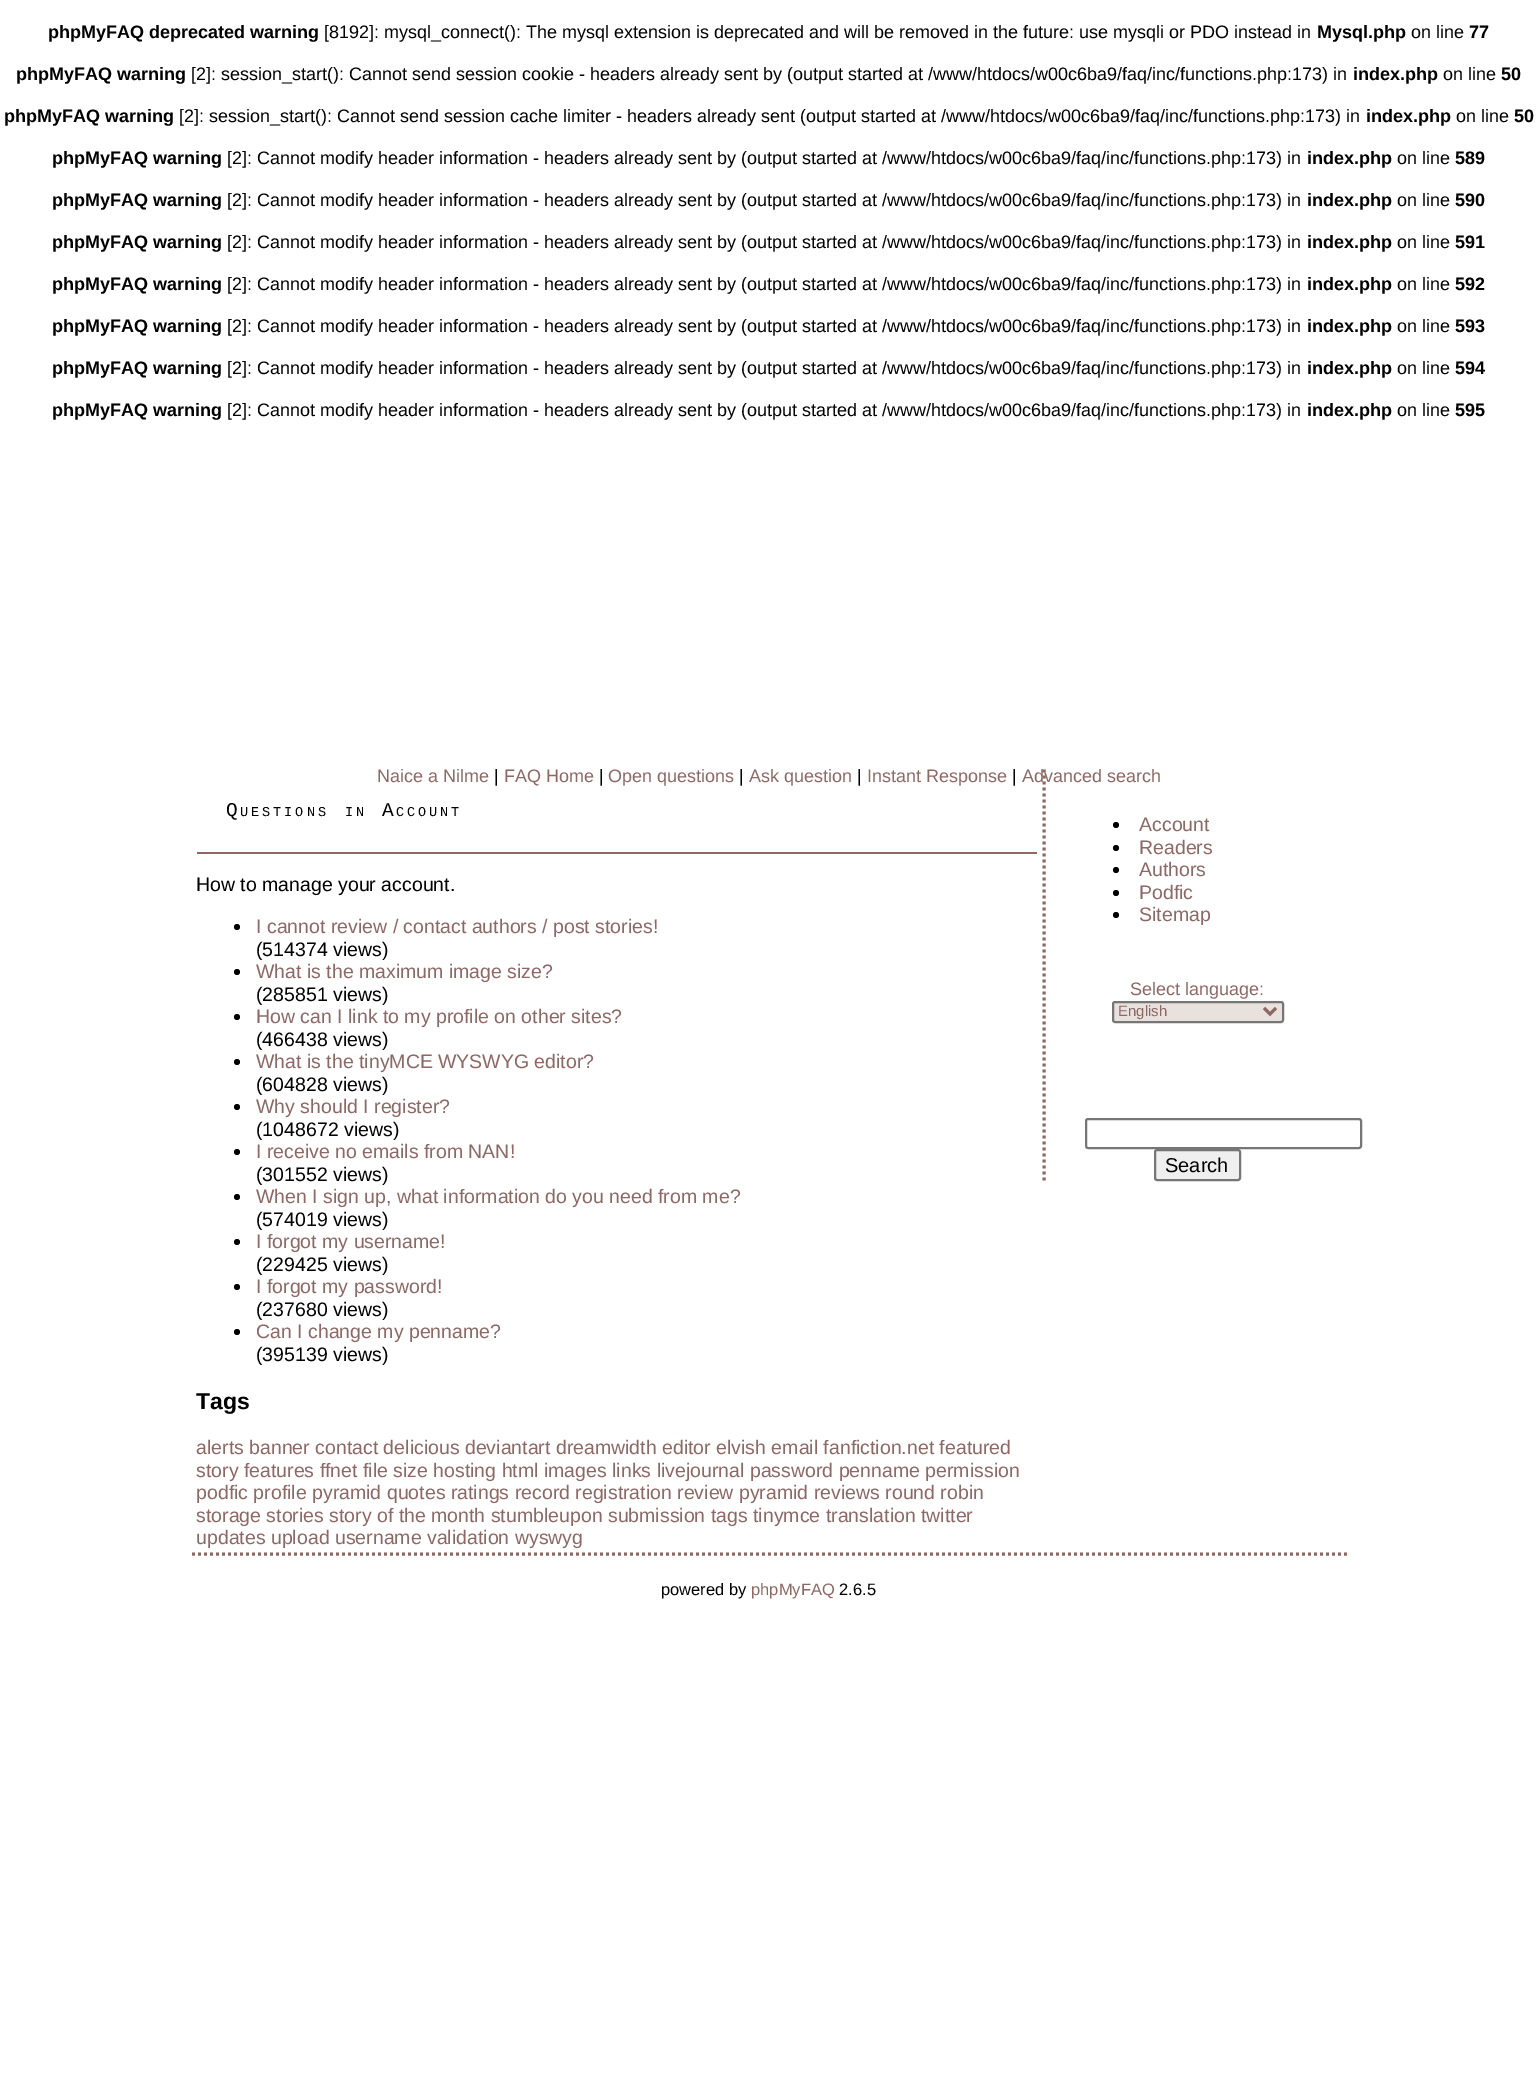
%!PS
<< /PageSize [1537 2097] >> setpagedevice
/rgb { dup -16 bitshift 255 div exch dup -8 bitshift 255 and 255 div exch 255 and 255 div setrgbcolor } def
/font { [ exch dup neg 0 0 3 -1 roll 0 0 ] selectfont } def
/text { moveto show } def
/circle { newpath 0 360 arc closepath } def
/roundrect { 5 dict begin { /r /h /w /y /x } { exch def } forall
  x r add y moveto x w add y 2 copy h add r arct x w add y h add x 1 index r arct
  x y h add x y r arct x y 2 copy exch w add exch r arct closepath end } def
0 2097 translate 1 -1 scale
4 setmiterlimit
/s1 { /LiberationSans-Bold 18 font 16#000000 rgb } def
/s2 { /LiberationSans-Regular 18 font 16#000000 rgb } def
/s3 { /LiberationSans-Regular 18 font 16#8C6965 rgb } def
/s4 { /LiberationSans-Regular 19.5 font 16#000000 rgb } def
/s5 { /LiberationSans-Regular 19.5 font 16#8C6965 rgb } def
/s6 { /LiberationSans-Bold 23 font 16#000000 rgb } def
/s7 { /LiberationSans-Regular 15 font 16#8C6965 rgb } def
/s8 { /LiberationSans-Regular 20 font 16#000000 rgb } def
/s9 { /LiberationSans-Regular 16.5 font 16#000000 rgb } def
/s10 { /LiberationSans-Regular 16.5 font 16#8C6965 rgb } def
16#FFFFFF rgb
0 0 1537 2097 rectfill
s1
(phpMyFAQ deprecated warning) 48 38 text
s2
([8192]: mysql_connect\(\): The mysql extension is deprecated and will be removed in the future: use mysqli or PDO instead in) 324 38 text
s1
(Mysql.php) 1317 38 text
s2
(on line) 1411 38 text
s1
(77) 1469 38 text
(phpMyFAQ warning) 16 80 text
s2
([2]: session_start\(\): Cannot send session cookie - headers already sent by \(output started at /www/htdocs/w00c6ba9/faq/inc/functions.php:173\) in) 191 80 text
s1
(index.php) 1353 80 text
s2
(on line) 1443 80 text
s1
(50) 1501 80 text
(phpMyFAQ warning) 4 122 text
s2
([2]: session_start\(\): Cannot send session cache limiter - headers already sent \(output started at /www/htdocs/w00c6ba9/faq/inc/functions.php:173\) in) 179 122 text
s1
(index.php) 1366 122 text
s2
(on line) 1456 122 text
s1
(50) 1514 122 text
(phpMyFAQ warning) 52 164 text
s2
([2]: Cannot modify header information - headers already sent by \(output started at /www/htdocs/w00c6ba9/faq/inc/functions.php:173\) in) 227 164 text
s1
(index.php) 1307 164 text
s2
(on line) 1397 164 text
s1
(589) 1455 164 text
(phpMyFAQ warning) 52 206 text
s2
([2]: Cannot modify header information - headers already sent by \(output started at /www/htdocs/w00c6ba9/faq/inc/functions.php:173\) in) 227 206 text
s1
(index.php) 1307 206 text
s2
(on line) 1397 206 text
s1
(590) 1455 206 text
(phpMyFAQ warning) 52 248 text
s2
([2]: Cannot modify header information - headers already sent by \(output started at /www/htdocs/w00c6ba9/faq/inc/functions.php:173\) in) 227 248 text
s1
(index.php) 1307 248 text
s2
(on line) 1397 248 text
s1
(591) 1455 248 text
(phpMyFAQ warning) 52 290 text
s2
([2]: Cannot modify header information - headers already sent by \(output started at /www/htdocs/w00c6ba9/faq/inc/functions.php:173\) in) 227 290 text
s1
(index.php) 1307 290 text
s2
(on line) 1397 290 text
s1
(592) 1455 290 text
(phpMyFAQ warning) 52 332 text
s2
([2]: Cannot modify header information - headers already sent by \(output started at /www/htdocs/w00c6ba9/faq/inc/functions.php:173\) in) 227 332 text
s1
(index.php) 1307 332 text
s2
(on line) 1397 332 text
s1
(593) 1455 332 text
(phpMyFAQ warning) 52 374 text
s2
([2]: Cannot modify header information - headers already sent by \(output started at /www/htdocs/w00c6ba9/faq/inc/functions.php:173\) in) 227 374 text
s1
(index.php) 1307 374 text
s2
(on line) 1397 374 text
s1
(594) 1455 374 text
(phpMyFAQ warning) 52 416 text
s2
([2]: Cannot modify header information - headers already sent by \(output started at /www/htdocs/w00c6ba9/faq/inc/functions.php:173\) in) 227 416 text
s1
(index.php) 1307 416 text
s2
(on line) 1397 416 text
s1
(595) 1455 416 text
s3
(Naice a Nilme) 377 782 text
s2
(|) 494 782 text
s3
(FAQ Home) 504 782 text
s2
(|) 599 782 text
s3
(Open questions) 608 782 text
s2
(|) 739 782 text
s3
(Ask question) 749 782 text
s2
(|) 857 782 text
s3
(Instant Response) 867 782 text
s2
(|) 1012 782 text
16#8C6965 rgb
3 setlinewidth
[3 3] 0 setdash
1044 769.5 moveto 1044 1180.5 lineto stroke
(Advanced search) 1022 782 text
197 852 840 2 rectfill
/LiberationMono-Regular 19.5 font
16#000000 rgb
226 816 moveto 3 0 (Q) ashow
/LiberationMono-Regular 13.5 font
240 816 moveto 3 0 (UESTIONS) ashow
345 816 moveto 3 0 (IN) ashow
/LiberationMono-Regular 19.5 font
382 816 moveto 3 0 (A) ashow
/LiberationMono-Regular 13.5 font
396 816 moveto 3 0 (CCOUNT) ashow
s4
(How to manage your account.) 196 891 text
237 927 3 circle fill
s5
(I cannot review / contact authors / post stories!) 256 933 text
s4
(\(514374 views\)) 256 956 text
237 972 3 circle fill
s5
(What is the maximum image size?) 256 978 text
s4
(\(285851 views\)) 256 1001 text
237 1017 3 circle fill
s5
(How can I link to my profile on other sites?) 256 1023 text
s4
(\(466438 views\)) 256 1046 text
237 1062 3 circle fill
s5
(What is the tinyMCE WYSWYG editor?) 256 1068 text
s4
(\(604828 views\)) 256 1091 text
237 1107 3 circle fill
s5
(Why should I register?) 256 1113 text
s4
(\(1048672 views\)) 256 1136 text
237 1152 3 circle fill
s5
(I receive no emails from NAN!) 256 1158 text
s4
(\(301552 views\)) 256 1181 text
237 1197 3 circle fill
s5
(When I sign up, what information do you need from me?) 256 1203 text
s4
(\(574019 views\)) 256 1226 text
237 1242 3 circle fill
s5
(I forgot my username!) 256 1248 text
s4
(\(229425 views\)) 256 1271 text
237 1287 3 circle fill
s5
(I forgot my password!) 256 1293 text
s4
(\(237680 views\)) 256 1316 text
237 1332 3 circle fill
s5
(Can I change my penname?) 256 1338 text
s4
(\(395139 views\)) 256 1361 text
s6
(Tags) 196 1409 text
s5
(alerts banner contact delicious deviantart dreamwidth editor elvish email fanfiction.net featured) 196 1454 text
(story features ffnet file size hosting html images links livejournal password penname permission) 196 1477 text
(podfic profile pyramid quotes ratings record registration review pyramid reviews round robin) 196 1499 text
(storage stories story of the month stumbleupon submission tags tinymce translation twitter) 196 1522 text
(updates upload username validation wyswyg) 196 1544 text
16#000000 rgb
1116 825 3 circle fill
s5
(Account) 1139 831 text
16#000000 rgb
1116 848 3 circle fill
s5
(Readers) 1139 854 text
16#000000 rgb
1116 870 3 circle fill
s5
(Authors) 1139 876 text
16#000000 rgb
1116 893 3 circle fill
s5
(Podfic) 1139 899 text
16#000000 rgb
1116 915 3 circle fill
s5
(Sitemap) 1139 921 text
s3
(Select language:) 1130 995 text
16#E9E1DD rgb
1113 1002 170 20 2 roundrect gsave fill grestore
16#767676 rgb
2 setlinewidth
[] 0 setdash
stroke
16#8C6965 rgb
3 setlinewidth
1264 1008 moveto 1270 1014 lineto 1276 1008 lineto stroke
s7
(English) 1118 1016 text
16#767676 rgb
2 setlinewidth
1086 1119 275 29 2 roundrect stroke
16#EFEFEF rgb
1155 1150 85 30 2 roundrect gsave fill grestore
16#767676 rgb
stroke
s8
(Search) 1165 1172 text
16#8C6965 rgb
3 setlinewidth
[3 3] 0 setdash
192 1554 moveto 1347 1554 lineto stroke
s9
(powered by) 661 1595 text
s10
(phpMyFAQ) 751 1595 text
s9
(2.6.5) 839 1595 text
showpage
